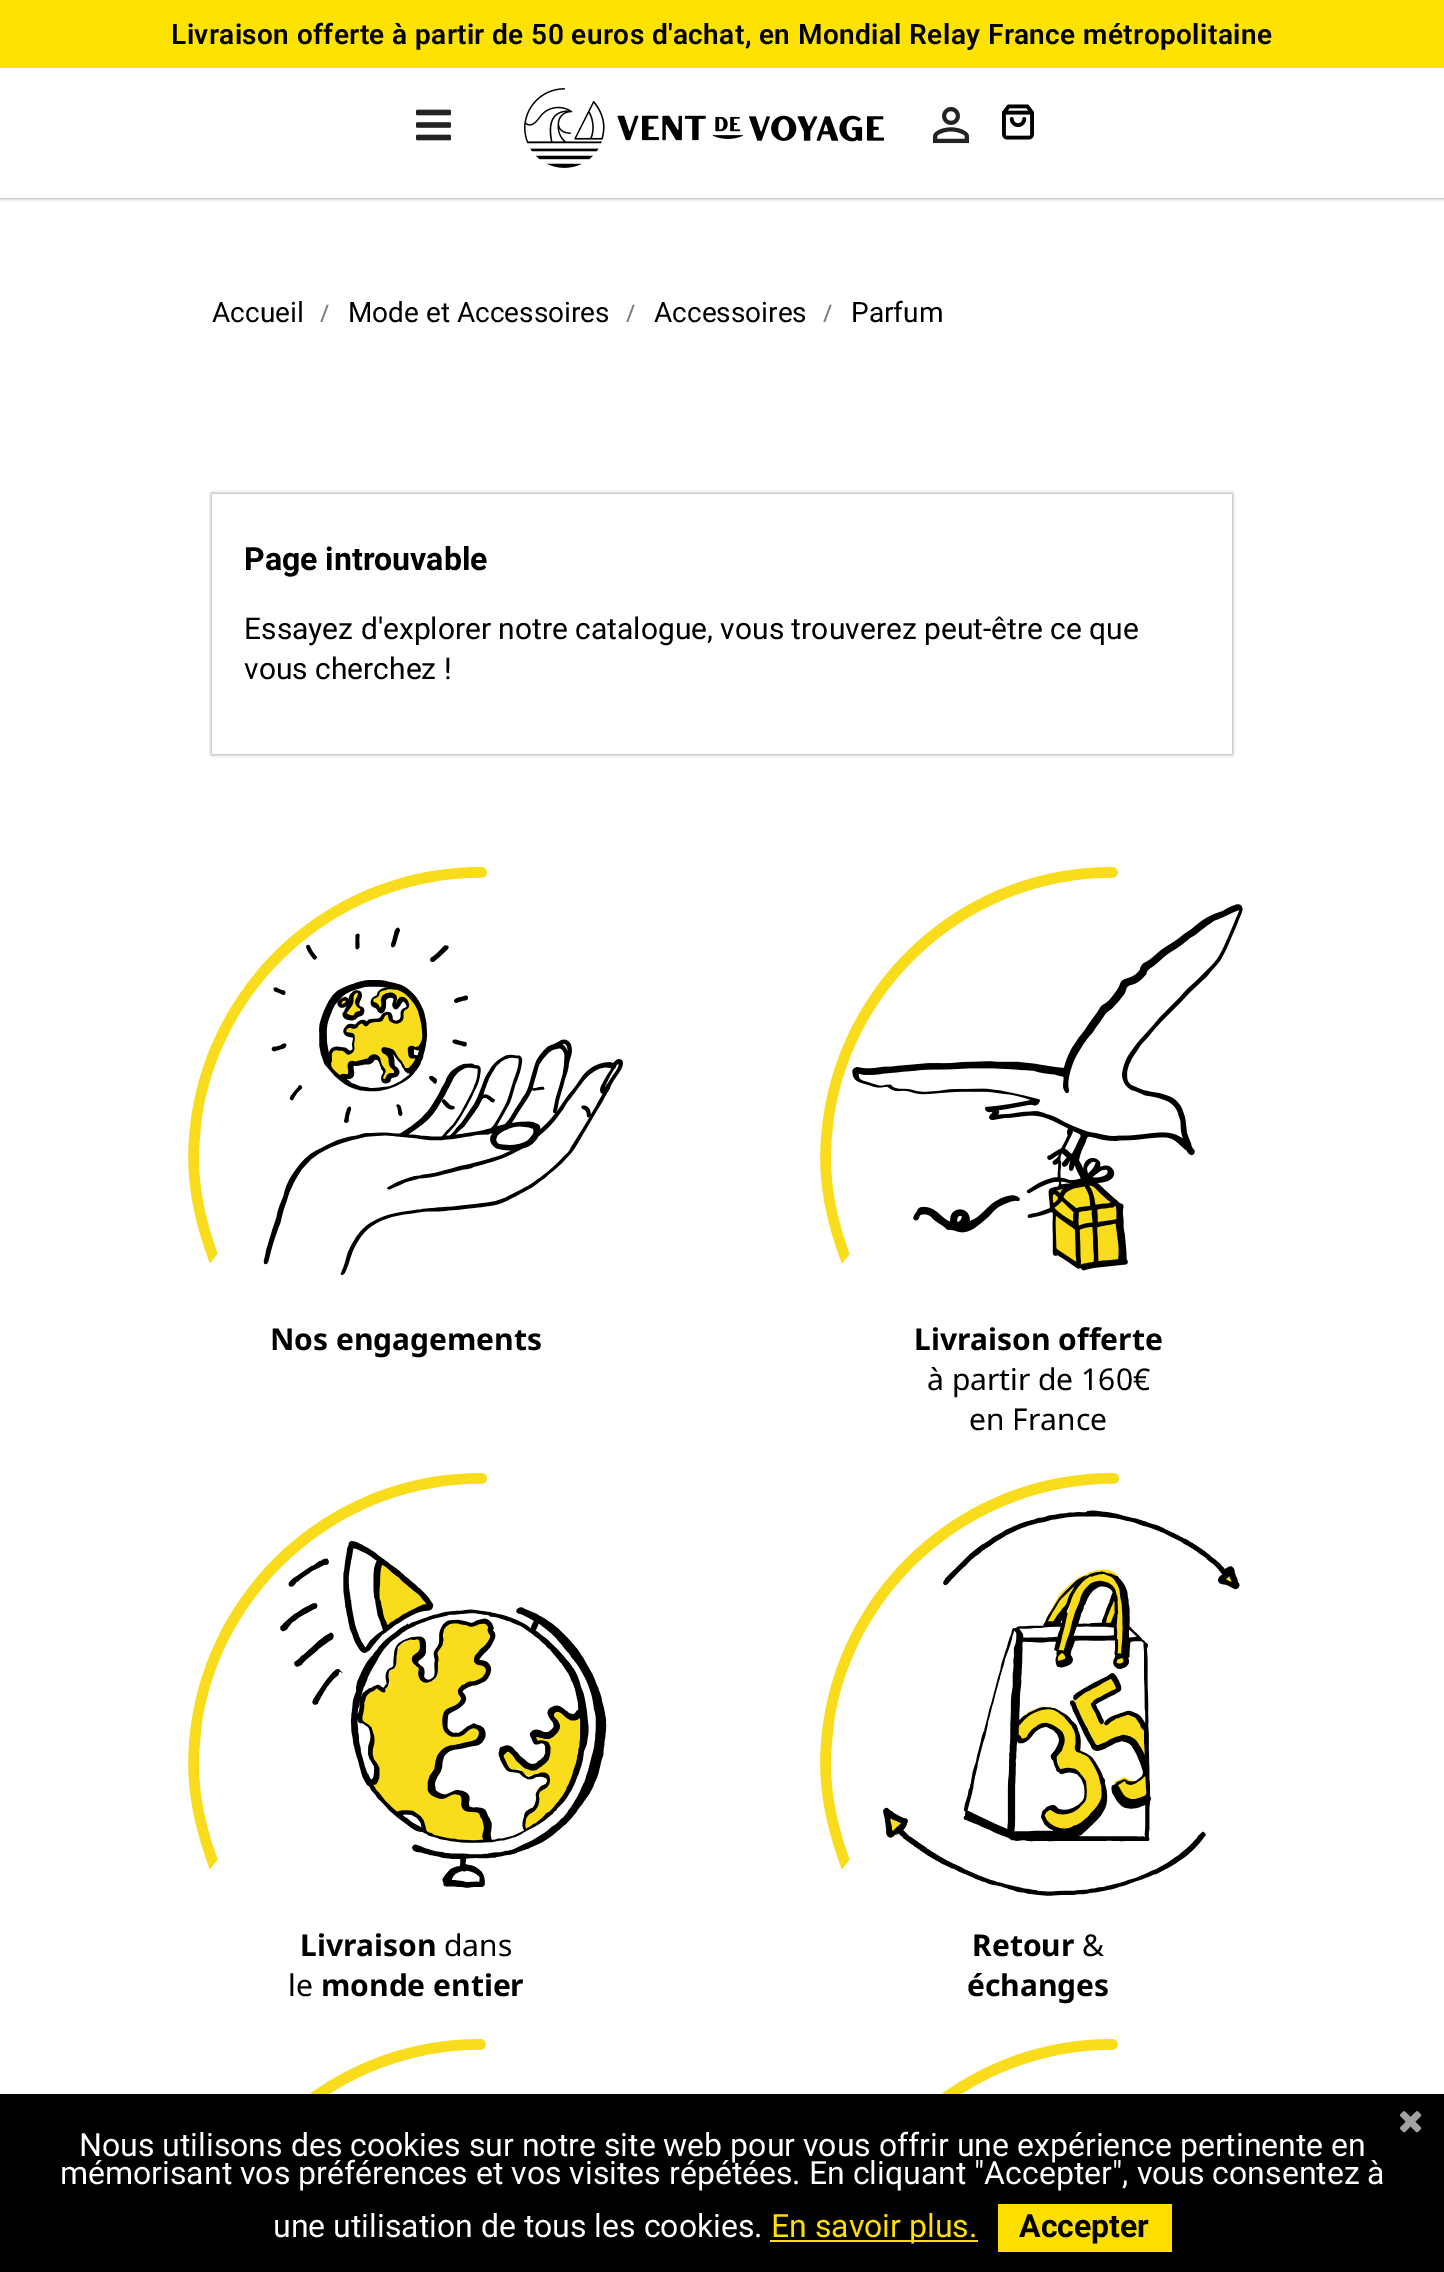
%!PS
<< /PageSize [1444 2272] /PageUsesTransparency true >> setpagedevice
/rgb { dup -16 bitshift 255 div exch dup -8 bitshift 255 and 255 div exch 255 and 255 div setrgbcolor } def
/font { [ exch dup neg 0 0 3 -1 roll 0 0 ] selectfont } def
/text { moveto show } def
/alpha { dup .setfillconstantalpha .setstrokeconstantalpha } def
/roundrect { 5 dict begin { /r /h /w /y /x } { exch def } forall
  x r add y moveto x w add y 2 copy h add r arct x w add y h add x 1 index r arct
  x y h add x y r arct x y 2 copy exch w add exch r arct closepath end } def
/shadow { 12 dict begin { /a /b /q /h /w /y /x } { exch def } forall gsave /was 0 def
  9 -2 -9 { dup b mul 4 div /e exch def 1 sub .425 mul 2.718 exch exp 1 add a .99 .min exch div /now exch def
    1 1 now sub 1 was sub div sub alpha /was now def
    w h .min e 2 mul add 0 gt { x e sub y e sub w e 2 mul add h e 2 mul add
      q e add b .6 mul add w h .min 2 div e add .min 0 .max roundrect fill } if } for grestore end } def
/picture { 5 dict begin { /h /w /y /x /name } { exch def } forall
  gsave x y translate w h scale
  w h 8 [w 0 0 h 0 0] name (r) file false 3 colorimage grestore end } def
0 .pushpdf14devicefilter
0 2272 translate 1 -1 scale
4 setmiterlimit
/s1 { /Roboto-Regular 28 font 16#000000 rgb } def
/s2 { /NotoSans-Regular 24 font 16#7A7A7A rgb } def
/s3 { /Roboto-Bold 32 font 16#000000 rgb } def
/s4 { /Roboto-Regular 30 font 16#000000 rgb } def
/s5 { /NotoSans-Bold 30 font 16#000000 rgb } def
/s6 { /NotoSans-Regular 30 font 16#000000 rgb } def
/s7 { /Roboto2-Regular 32 font 16#FFFFFF rgb } def
/s8 { /Roboto2-Regular 32 font 16#FFDF00 rgb } def
/s9 { /Roboto2-Bold 32 font 16#000000 rgb } def
16#FFFFFF rgb
0 0 1444 2272 rectfill
gsave
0 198 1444 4 rectclip
16#808080 rgb
0 0 1444 198 0 2 1 shadow
grestore
16#FEE201 rgb
0 0 1444 68 rectfill
/Roboto-SemiBold 28 font
16#000000 rgb
171 44 moveto 0.4 0 (Livraison offerte à partir de 50 euros d'achat, en Mondial Relay France métropolitaine) ashow
(pic1.raw) 416 109 35 32 picture
(pic2.raw) 524 88 360 80 picture
(pic3.raw) 932 107 38 37 picture
(pic4.raw) 1002 104 32 36 picture
s1
(Accueil) 212 322 text
s2
(/) 320 322 text
s1
(Mode et Accessoires) 348 322 text
s2
(/) 626 322 text
s1
(Accessoires) 654 322 text
s2
(/) 823 322 text
s1
(Parfum) 851 322 text
gsave
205 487 moveto 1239 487 lineto 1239 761 lineto 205 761 lineto closepath 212 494 moveto 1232 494 lineto 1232 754 lineto 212 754 lineto closepath eoclip newpath
16#808080 rgb
212 494 1020 260 0 2 1 shadow
grestore
s3
(Page introuvable) 244 570 text
s4
(Essayez d'explorer notre catalogue, vous trouverez peut-être ce que) 244 639 text
(vous cherchez !) 244 679 text
(pic5.raw) 188 867 435 408 picture
s5
(Nos engagements) 270 1350 text
(pic6.raw) 820 867 423 404 picture
(Livraison offerte) 914 1350 text
s6
(à partir de 160€) 927 1390 text
(en France) 969 1430 text
(pic7.raw) 188 1473 419 415 picture
s5
(Livraison) 300 1956 text
s6
(dans) 444 1956 text
(le) 288 1996 text
s5
(monde entier) 321 1996 text
(pic8.raw) 820 1473 420 423 picture
(Retour) 972 1956 text
s6
(&) 1082 1956 text
s5
(échanges) 967 1996 text
(pic9.raw) 309 2039 177 55 picture
(pic9.raw) 941 2039 177 55 picture
0 2094 1444 178 rectfill
(pic10.raw) 1400 2111 22 22 picture
s7
(Nous utilisons des cookies sur notre site web pour vous offrir une expérience pertinente en) 79 2156 text
(mémorisant vos préférences et vos visites répétées. En cliquant "Accepter", vous consentez à) 60 2184 text
(une utilisation de tous les cookies.) 273 2237 text
16#FFDF00 rgb
770 2240 208 2 rectfill
(En savoir plus.) 771 2237 text
998 2204 174 48 rectfill
s9
(Accepter) 1019 2237 text
.poppdf14devicefilter showpage
